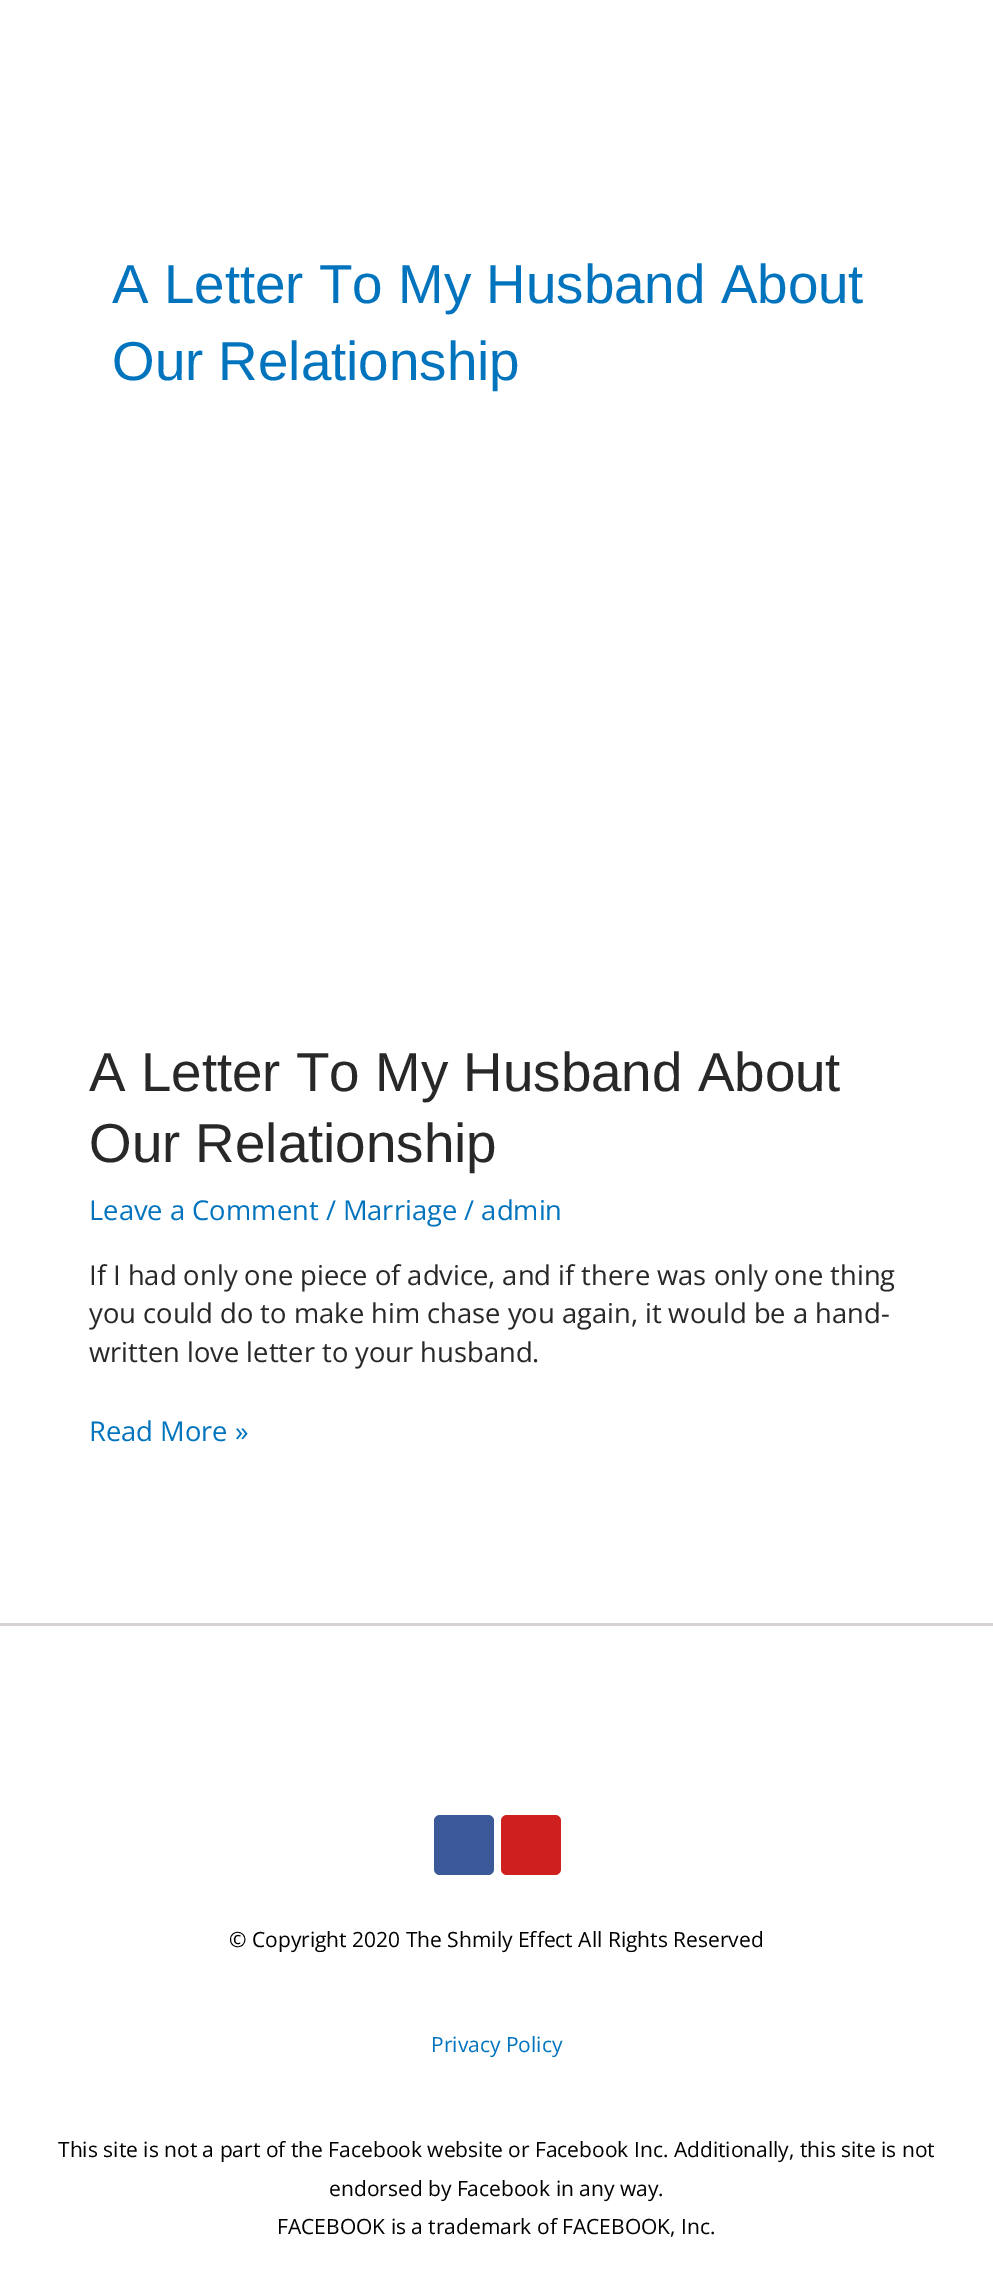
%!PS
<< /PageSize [993 2274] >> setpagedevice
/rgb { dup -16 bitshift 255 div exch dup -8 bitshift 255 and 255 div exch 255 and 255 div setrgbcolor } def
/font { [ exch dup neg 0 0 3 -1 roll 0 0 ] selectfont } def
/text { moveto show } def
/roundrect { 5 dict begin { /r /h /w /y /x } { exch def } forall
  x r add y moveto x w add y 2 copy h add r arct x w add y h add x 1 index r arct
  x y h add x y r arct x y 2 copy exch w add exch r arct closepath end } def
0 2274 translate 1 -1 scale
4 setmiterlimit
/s1 { /LiberationSans-Regular 54.75 font 16#0274BE rgb } def
/s2 { /LiberationSans-Regular 54.75 font 16#282828 rgb } def
/s3 { /OpenSans-Regular 27.35 font 16#0274BE rgb } def
/s4 { /OpenSans-Regular 27.35 font 16#282828 rgb } def
/s5 { /OpenSans-Regular 21 font 16#000000 rgb } def
/s6 { /OpenSans-Regular 21 font 16#0274BE rgb } def
16#FFFFFF rgb
0 0 993 2274 rectfill
s1
(A Letter To My Husband About) 112 303 text
(Our Relationship) 112 380 text
s2
(A Letter To My Husband About) 89 1091 text
(Our Relationship) 89 1162 text
s3
(Leave a Comment / Marriage / admin) 89 1220 text
s4
(If I had only one piece of advice, and if there was only one thing) 89 1285 text
gsave
89 528 816 945 rectclip
(you could do to make him chase you again, it would be a hand-) 89 1323 text
grestore
(written love letter to your husband.) 89 1362 text
s3
(Read More ») 89 1441 text
16#D7D3D3 rgb
0 1623 993 3 rectfill
16#3B5998 rgb
434 1815 60 60 6 roundrect fill
16#CD201F rgb
501 1815 60 60 6 roundrect fill
s5
(© Copyright 2020 The Shmily Effect All Rights Reserved) 229 1947 text
s6
(Privacy Policy) 431 2052 text
s5
(This site is not a part of the Facebook website or Facebook Inc. Additionally, this site is not) 58 2157 text
(endorsed by Facebook in any way.) 329 2196 text
(FACEBOOK is a trademark of FACEBOOK, Inc.) 277 2234 text
showpage
